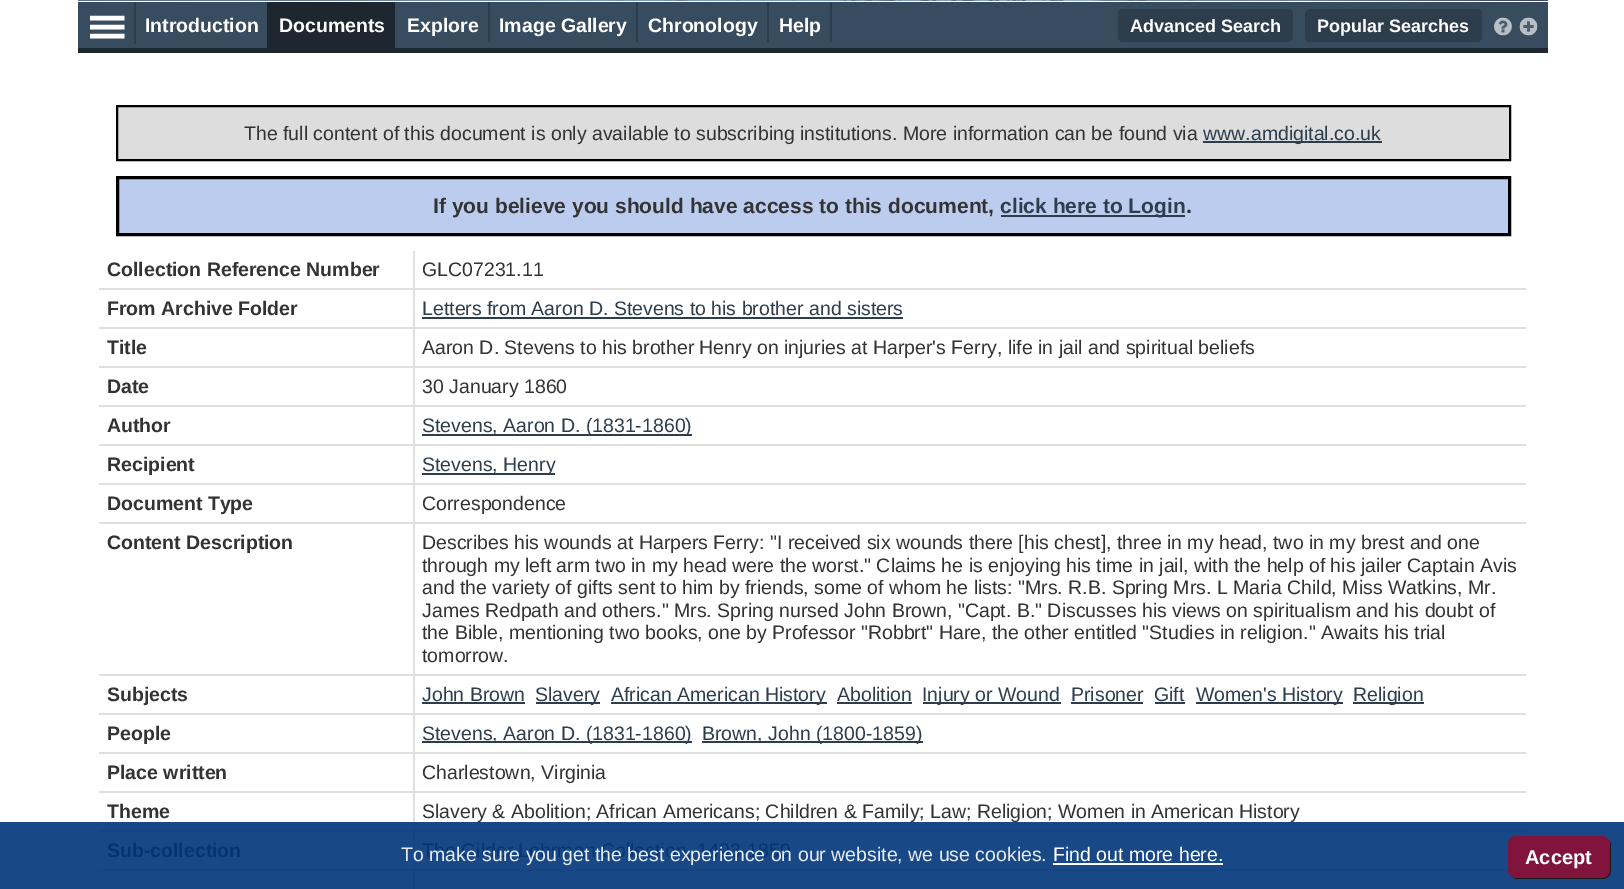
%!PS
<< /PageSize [1624 889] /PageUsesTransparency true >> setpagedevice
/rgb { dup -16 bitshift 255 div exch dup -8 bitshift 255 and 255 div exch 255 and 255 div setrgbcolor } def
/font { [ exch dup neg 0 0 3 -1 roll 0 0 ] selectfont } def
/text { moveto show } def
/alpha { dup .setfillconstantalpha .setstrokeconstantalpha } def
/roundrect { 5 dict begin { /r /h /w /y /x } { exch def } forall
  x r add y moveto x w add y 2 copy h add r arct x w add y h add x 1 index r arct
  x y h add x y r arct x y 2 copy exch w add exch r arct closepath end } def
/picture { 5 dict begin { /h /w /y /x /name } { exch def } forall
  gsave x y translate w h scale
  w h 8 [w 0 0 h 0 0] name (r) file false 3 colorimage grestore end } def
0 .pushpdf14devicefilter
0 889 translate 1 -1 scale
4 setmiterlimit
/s1 { /LiberationSans-Bold 19.5 font 16#FFFFFF rgb } def
/s2 { /LiberationSans-Bold 18 font 16#FFFFFF rgb } def
/s3 { /LiberationSans-Regular 19.5 font 16#333333 rgb } def
/s4 { /LiberationSans-Regular 19.5 font 16#2D3D4C rgb } def
/s5 { /LiberationSans-Bold 21 font 16#333333 rgb } def
/s6 { /LiberationSans-Bold 21 font 16#2D3D4C rgb } def
/s7 { /LiberationSans-Bold 19.5 font 16#333333 rgb } def
/s8 { /LiberationSans-Bold 19.5 font 16#053473 rgb } def
/s9 { /LiberationSans-Regular 19.5 font 16#053473 rgb } def
/s10 { /LiberationSans-Regular 19.5 font 16#E8ECF3 rgb } def
/s11 { /LiberationSans-Regular 19.5 font 16#FFFFFF rgb } def
/s12 { /LiberationSans-Bold 20 font 16#FFFFFF rgb } def
16#FFFFFF rgb
0 0 1624 889 rectfill
16#194887 rgb
0 822 1624 67 rectfill
(pic1.raw) 78 0 1470 1 picture
16#374C5F rgb
78 2 1470 46 rectfill
16#1E262F rgb
78 48 1470 5 rectfill
16#FFFFFF rgb
4.5 setlinewidth
90 18 moveto 124.5 18 lineto 90 27 moveto 124.5 27 lineto 90 36 moveto 124.5 36 lineto stroke
16#2D3D4C rgb
134 2 2 42 rectfill
s1
(Introduction) 145 32 text
16#1E262F rgb
267 2 128 46 rectfill
s1
(Documents) 279 32 text
(Explore) 407 32 text
16#2D3D4C rgb
488 2 2 40 rectfill
s1
(Image Gallery) 499 32 text
16#2D3D4C rgb
636 2 2 40 rectfill
s1
(Chronology) 648 32 text
16#2D3D4C rgb
767 2 2 40 rectfill
s1
(Help) 779 32 text
16#2D3D4C rgb
830 2 2 40 rectfill
1118 9 175 33 5 roundrect fill
s2
(Advanced Search) 1130 32 text
16#2D3D4C rgb
1305 9 177 33 5 roundrect fill
s2
(Popular Searches) 1317 32 text
(pic2.raw) 1494 17 18 19 picture
(pic3.raw) 1519 17 19 19 picture
16#DDDDDD rgb
117 106 moveto 1510 106 lineto 1510 160 lineto 117 160 lineto closepath gsave fill grestore
16#000000 rgb
2 setlinewidth
stroke
s3
(The full content of this document is only available to subscribing institutions. More information can be found via) 244 140 text
16#2D3D4C rgb
1203 141 179 2 rectfill
(www.amdigital.co.uk) 1203 140 text
16#BBCCEE rgb
117.5 177.5 moveto 1509.5 177.5 lineto 1509.5 234.5 lineto 117.5 234.5 lineto closepath gsave fill grestore
16#000000 rgb
3 setlinewidth
stroke
s5
(If you believe you should have access to this document,) 433 213 text
16#2D3D4C rgb
1001 215 184 2 rectfill
(click here to Login) 1000 213 text
s5
(.) 1186 213 text
16#DFDFDF rgb
413 791 2 31 rectfill
413 791 1113 2 rectfill
413 752 2 40 rectfill
413 752 1113 2 rectfill
413 713 2 40 rectfill
413 713 1113 2 rectfill
413 674 2 40 rectfill
413 674 1113 2 rectfill
413 522 2 153 rectfill
413 522 1113 2 rectfill
413 483 2 41 rectfill
413 483 1113 2 rectfill
413 444 2 41 rectfill
413 444 1113 2 rectfill
413 405 2 41 rectfill
413 405 1113 2 rectfill
413 366 2 41 rectfill
413 366 1113 2 rectfill
413 327 2 41 rectfill
413 327 1113 2 rectfill
413 288 2 41 rectfill
413 288 1113 2 rectfill
413 251 2 39 rectfill
99 288 315 2 rectfill
s7
(Collection Reference Number) 107 276 text
s3
(GLC07231.11) 422 276 text
16#DFDFDF rgb
99 327 315 2 rectfill
s7
(From Archive Folder) 107 315 text
s4
(Letters from Aaron D. Stevens to his brother and sisters) 422 315 text
422 317 481 2 rectfill
16#DFDFDF rgb
99 366 315 2 rectfill
s7
(Title) 107 354 text
s3
(Aaron D. Stevens to his brother Henry on injuries at Harper's Ferry, life in jail and spiritual beliefs) 422 354 text
16#DFDFDF rgb
99 405 315 2 rectfill
s7
(Date) 107 393 text
s3
(30 January 1860) 422 393 text
16#DFDFDF rgb
99 444 315 2 rectfill
s7
(Author) 107 432 text
16#2D3D4C rgb
422 434 270 2 rectfill
s4
(Stevens, Aaron D. \(1831-1860\)) 422 432 text
16#DFDFDF rgb
99 483 315 2 rectfill
s7
(Recipient) 107 471 text
16#2D3D4C rgb
422 473 133 2 rectfill
s4
(Stevens, Henry) 422 471 text
16#DFDFDF rgb
99 522 315 2 rectfill
s7
(Document Type) 107 510 text
s3
(Correspondence) 422 510 text
16#DFDFDF rgb
99 674 315 2 rectfill
s7
(Content Description) 107 549 text
s3
(Describes his wounds at Harpers Ferry: "I received six wounds there [his chest], three in my head, two in my brest and one) 422 549 text
(through my left arm two in my head were the worst." Claims he is enjoying his time in jail, with the help of his jailer Captain Avis) 422 572 text
(and the variety of gifts sent to him by friends, some of whom he lists: "Mrs. R.B. Spring Mrs. L Maria Child, Miss Watkins, Mr.) 422 594 text
(James Redpath and others." Mrs. Spring nursed John Brown, "Capt. B." Discusses his views on spiritualism and his doubt of) 422 617 text
(the Bible, mentioning two books, one by Professor "Robbrt" Hare, the other entitled "Studies in religion." Awaits his trial) 422 639 text
(tomorrow.) 422 662 text
16#DFDFDF rgb
99 713 315 2 rectfill
s7
(Subjects) 107 701 text
s4
(John Brown) 422 701 text
422 702 103 2 rectfill
536 702 64 2 rectfill
(Slavery) 535 701 text
611 702 216 2 rectfill
(African American History) 611 701 text
(Abolition) 837 701 text
837 702 75 2 rectfill
923 702 138 2 rectfill
(Injury or Wound) 922 701 text
(Prisoner) 1071 701 text
1071 702 72 2 rectfill
(Gift) 1154 701 text
1155 702 30 2 rectfill
1196 702 147 2 rectfill
(Women's History) 1196 701 text
1353 702 71 2 rectfill
(Religion) 1353 701 text
16#DFDFDF rgb
99 752 315 2 rectfill
s7
(People) 107 740 text
16#2D3D4C rgb
422 741 270 2 rectfill
s4
(Stevens, Aaron D. \(1831-1860\)) 422 740 text
702 741 221 2 rectfill
(Brown, John \(1800-1859\)) 702 740 text
16#DFDFDF rgb
99 791 315 2 rectfill
s7
(Place written) 107 779 text
s3
(Charlestown, Virginia) 422 779 text
16#164584 rgb
413 869 2 20 rectfill
413 869 1113 2 rectfill
413 830 2 40 rectfill
413 830 1113 2 rectfill
413 822 2 9 rectfill
99 830 315 2 rectfill
s7
(Theme) 107 818 text
s3
(Slavery & Abolition; African Americans; Children & Family; Law; Religion; Women in American History) 422 818 text
16#164584 rgb
99 869 315 2 rectfill
s8
(Sub-collection) 107 857 text
s9
(The Gilder Lehrman Collection, 1493-1859) 422 857 text
s10
(To make sure you get the best experience on our website, we use cookies.) 401 861 text
s11
(Find out more here.) 1053 861 text
1053 863 170 2 rectfill
16#1A1A1A rgb
1511 876 moveto 1513 878 1515 879 1517 879 curveto 1603 879 lineto 1607 879 1611 875 1611 871 curveto 1611 845 lineto 1611 843 1610 841 1608 839 curveto 1609 840 1610 842 1610 843 curveto 1610 870 lineto 1610 874 1606 878 1602 878 curveto 1515 878 lineto 1514 878 1512 877 1511 876 curveto closepath fill
0.9 alpha
16#8B0E35 rgb
1508 836 102 42 8 roundrect fill
1 alpha
s12
(Accept) 1525 864 text
.poppdf14devicefilter showpage
